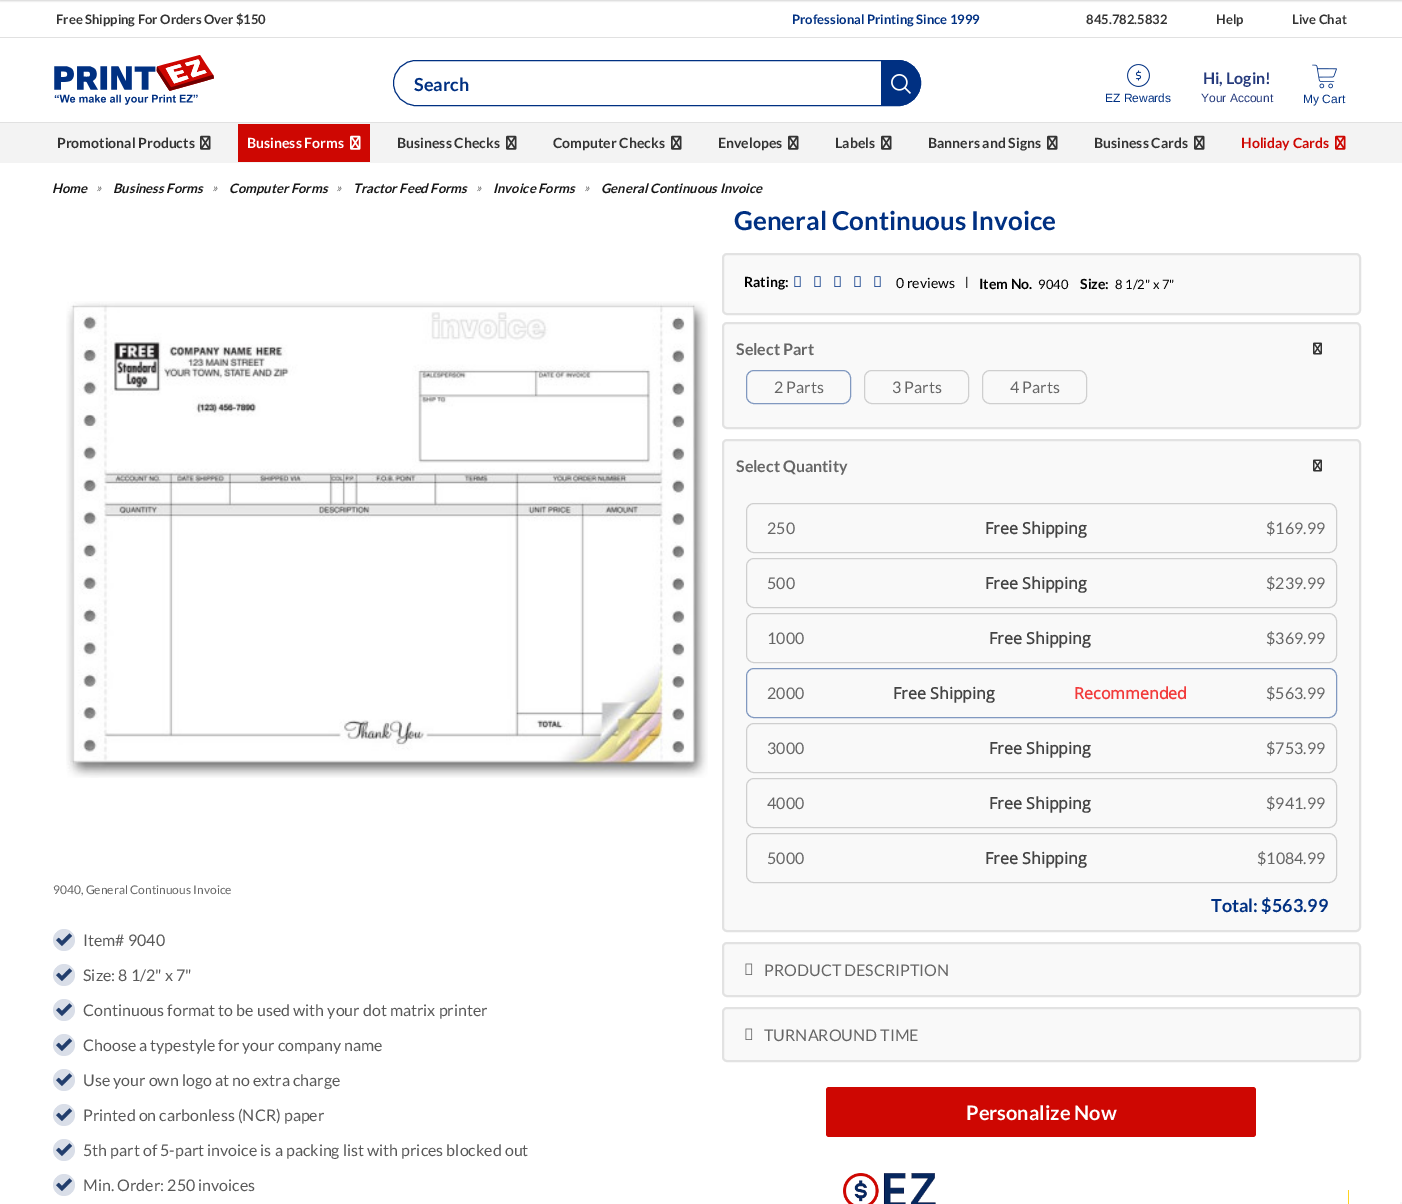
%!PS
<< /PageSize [1402 1204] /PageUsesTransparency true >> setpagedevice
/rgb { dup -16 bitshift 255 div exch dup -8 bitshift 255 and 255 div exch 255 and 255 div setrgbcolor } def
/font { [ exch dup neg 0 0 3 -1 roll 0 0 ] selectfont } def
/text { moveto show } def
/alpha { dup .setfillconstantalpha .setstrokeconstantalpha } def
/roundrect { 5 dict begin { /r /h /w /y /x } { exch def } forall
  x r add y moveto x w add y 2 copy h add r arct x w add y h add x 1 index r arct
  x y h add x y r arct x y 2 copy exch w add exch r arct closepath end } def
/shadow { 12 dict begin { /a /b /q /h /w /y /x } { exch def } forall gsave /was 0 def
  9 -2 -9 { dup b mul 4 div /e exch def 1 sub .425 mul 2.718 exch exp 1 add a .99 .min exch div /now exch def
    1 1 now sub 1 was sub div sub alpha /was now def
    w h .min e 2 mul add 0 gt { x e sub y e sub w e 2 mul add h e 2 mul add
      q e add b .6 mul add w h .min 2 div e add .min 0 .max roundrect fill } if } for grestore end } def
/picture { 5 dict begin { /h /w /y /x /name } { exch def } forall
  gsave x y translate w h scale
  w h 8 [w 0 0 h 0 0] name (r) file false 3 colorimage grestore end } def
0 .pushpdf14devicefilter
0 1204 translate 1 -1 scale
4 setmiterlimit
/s1 { /Lato-Bold 13 font 16#333333 rgb } def
/s2 { /Lato-Bold 13 font 16#003082 rgb } def
/s3 { /Lato-Bold 18 font 16#003082 rgb } def
/s4 { /LiberationSans-Regular 12 font 16#003082 rgb } def
/s5 { /Lato-Bold 16 font 16#253A7C rgb } def
/s6 { /LiberationSans-Regular 12 font 16#253A7C rgb } def
/s7 { /Lato-Bold 14 font 16#333333 rgb } def
/s8 { /Lato-Bold 14 font 16#FFFFFF rgb } def
/s9 { /Lato-Bold 14 font 16#CE0702 rgb } def
/s10 { /Lato-BoldItalic 13 font 16#171717 rgb } def
/s11 { /Lato-Italic 12 font 16#666666 rgb } def
/s12 { /Lato-Regular 12 font 16#666666 rgb } def
/s13 { /Lato-Regular 16 font 16#595959 rgb } def
/s14 { /Lato-Bold 26 font 16#003082 rgb } def
/s15 { /Lato-Bold 14 font 16#000000 rgb } def
/s16 { /Lato-Regular 14 font 16#000000 rgb } def
/s17 { /Lato-Regular 12 font 16#000000 rgb } def
/s18 { /Lato-Regular 13 font 16#000000 rgb } def
/s19 { /Lato-Bold 16 font 16#666666 rgb } def
/s20 { /Lato-Regular 16 font 16#666666 rgb } def
/s21 { /OpenSans-Bold 16 font 16#444444 rgb } def
/s22 { /OpenSans-Bold 16 font 16#F23B3B rgb } def
/s23 { /Lato-Bold 20 font 16#FFFFFF rgb } def
16#FFFFFF rgb
0 0 1402 1204 rectfill
16#E1E1E1 rgb
0 37 1402 1 rectfill
s1
(Free Shipping For Orders Over $150) 56 24 text
s2
(Professional Printing Since 1999) 792 24 text
s1
(845.782.5832) 1086 24 text
(Help) 1216 24 text
(Live Chat) 1292 24 text
(pic1.raw) 54 55 160 50 picture
16#003082 rgb
393.5 60.5 527 45 22.5 roundrect stroke
s3
(Search) 414 91 text
881 60 moveto 898 60 lineto 910.5 60 921 70.5 921 83 curveto 921 95.5 910.5 106 898 106 curveto 881 106 lineto closepath fill
(pic2.raw) 891 74 20 20 picture
(pic3.raw) 1127 64 23 23 picture
s4
(EZ Rewards) 1105 102 text
s5
(Hi, Login!) 1203 84 text
s6
(Your Account) 1201 102 text
(pic4.raw) 1312 64 25 25 picture
s4
(My Cart) 1303 103 text
16#F3F3F3 rgb
0 123 1402 40 rectfill
16#E1E1E1 rgb
0 122 1402 1 rectfill
s7
(Promotional Products) 57 148 text
(pic5.raw) 200 135 11 15 picture
16#CE0702 rgb
238 124 132 38 rectfill
s8
(Business Forms) 247 148 text
(pic6.raw) 350 135 11 15 picture
s7
(Business Checks) 397 148 text
(pic5.raw) 506 135 11 15 picture
(Computer Checks) 553 148 text
(pic5.raw) 671 135 11 15 picture
(Envelopes) 718 148 text
(pic5.raw) 788 135 11 15 picture
(Labels) 835 148 text
(pic5.raw) 881 135 11 15 picture
(Banners and Signs) 928 148 text
(pic5.raw) 1047 135 11 15 picture
(Business Cards) 1094 148 text
(pic5.raw) 1194 135 11 15 picture
s9
(Holiday Cards) 1241 148 text
(pic7.raw) 1335 135 11 15 picture
16#000000 rgb
0 -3 1402 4 0 1 0.18 shadow
s10
(Home) 52 193 text
s11
(») 96 192 text
s10
(Business Forms) 113 193 text
s11
(») 212 192 text
s10
(Computer Forms) 229 193 text
s11
(») 336 192 text
s10
(Tractor Feed Forms) 353 193 text
s11
(») 476 192 text
s10
(Invoice Forms) 493 193 text
s11
(») 584 192 text
s10
(General Continuous Invoice) 601 193 text
(pic8.raw) 66 301 642 477 picture
s12
(9040, General Continuous Invoice) 53 894 text
(pic9.raw) 53 929 22 22 picture
s13
(Item# 9040) 83 946 text
(pic9.raw) 53 964 22 22 picture
(Size: 8 1/2" x 7") 83 981 text
(pic9.raw) 53 999 22 22 picture
(Continuous format to be used with your dot matrix printer) 83 1016 text
(pic9.raw) 53 1034 22 22 picture
(Choose a typestyle for your company name) 83 1051 text
(pic9.raw) 53 1069 22 22 picture
(Use your own logo at no extra charge) 83 1086 text
(pic9.raw) 53 1104 22 22 picture
(Printed on carbonless \(NCR\) paper) 83 1121 text
(pic9.raw) 53 1139 22 22 picture
(5th part of 5-part invoice is a packing list with prices blocked out) 83 1156 text
(pic9.raw) 53 1174 22 22 picture
(Min. Order: 250 invoices) 83 1191 text
s14
(General Continuous Invoice) 734 230 text
16#F9F9F9 rgb
723 254 637 60 4 roundrect gsave fill grestore
16#E2E2E2 rgb
2 setlinewidth
stroke
s15
(Rating:) 744 287 text
(pic10.raw) 794 276 7 11 picture
(pic10.raw) 814 276 7 11 picture
(pic10.raw) 834 276 7 11 picture
(pic10.raw) 854 276 7 11 picture
(pic10.raw) 874 276 7 11 picture
s16
(0 reviews) 896 288 text
s17
(|) 965 286 text
s15
(Item No.) 979 289 text
s18
(9040) 1038 289 text
s15
(Size:) 1080 289 text
s18
(8 1/2" x 7") 1115 289 text
16#F9F9F9 rgb
723 323 637 105 4 roundrect gsave fill grestore
16#E2E2E2 rgb
stroke
s19
(Select Part) 736 355 text
(pic11.raw) 1313 342 9 13 picture
16#8199C0 rgb
1 setlinewidth
746.5 370.5 104 33 7.5 roundrect stroke
s20
(2 Parts) 774 393 text
16#CFCFCF rgb
864.5 370.5 104 33 7.5 roundrect stroke
s20
(3 Parts) 892 393 text
16#CFCFCF rgb
982.5 370.5 104 33 7.5 roundrect stroke
s20
(4 Parts) 1010 393 text
16#F9F9F9 rgb
723 440 637 491 4 roundrect gsave fill grestore
16#E2E2E2 rgb
2 setlinewidth
stroke
s19
(Select Quantity) 736 472 text
(pic11.raw) 1313 459 9 13 picture
16#CFCFCF rgb
1 setlinewidth
746.5 503.5 590 49 7.5 roundrect stroke
s20
(250) 767 534 text
s21
(Free Shipping) 985 534 text
s20
($169.99) 1266 534 text
16#CFCFCF rgb
746.5 558.5 590 49 7.5 roundrect stroke
s20
(500) 767 589 text
s21
(Free Shipping) 985 589 text
s20
($239.99) 1266 589 text
16#CFCFCF rgb
746.5 613.5 590 49 7.5 roundrect stroke
s20
(1000) 767 644 text
s21
(Free Shipping) 989 644 text
s20
($369.99) 1266 644 text
16#8199C0 rgb
746.5 668.5 590 49 7.5 roundrect stroke
s20
(2000) 767 699 text
s21
(Free Shipping) 893 699 text
s22
(Recommended) 1074 699 text
s20
($563.99) 1266 699 text
16#CFCFCF rgb
746.5 723.5 590 49 7.5 roundrect stroke
s20
(3000) 767 754 text
s21
(Free Shipping) 989 754 text
s20
($753.99) 1266 754 text
16#CFCFCF rgb
746.5 778.5 590 49 7.5 roundrect stroke
s20
(4000) 767 809 text
s21
(Free Shipping) 989 809 text
s20
($941.99) 1266 809 text
16#CFCFCF rgb
746.5 833.5 590 49 7.5 roundrect stroke
s20
(5000) 767 864 text
s21
(Free Shipping) 985 864 text
s20
($1084.99) 1257 864 text
s3
(Total: $563.99) 1211 912 text
16#F9F9F9 rgb
723 943 637 53 4 roundrect gsave fill grestore
16#E2E2E2 rgb
2 setlinewidth
stroke
(pic12.raw) 745 963 8 12 picture
s20
(PRODUCT DESCRIPTION) 764 976 text
16#F9F9F9 rgb
723 1008 637 53 4 roundrect gsave fill grestore
16#E2E2E2 rgb
stroke
(pic12.raw) 745 1028 8 12 picture
s20
(TURNAROUND TIME) 764 1041 text
16#CE0702 rgb
826 1087 430 50 3 roundrect fill
s23
(Personalize Now) 966 1120 text
(pic13.raw) 843 1173 93 31 picture
16#FFD321 rgb
1348 1190 1 14 rectfill
16#F5F5F5 rgb
1400 1202 2 2 rectfill
.poppdf14devicefilter showpage
